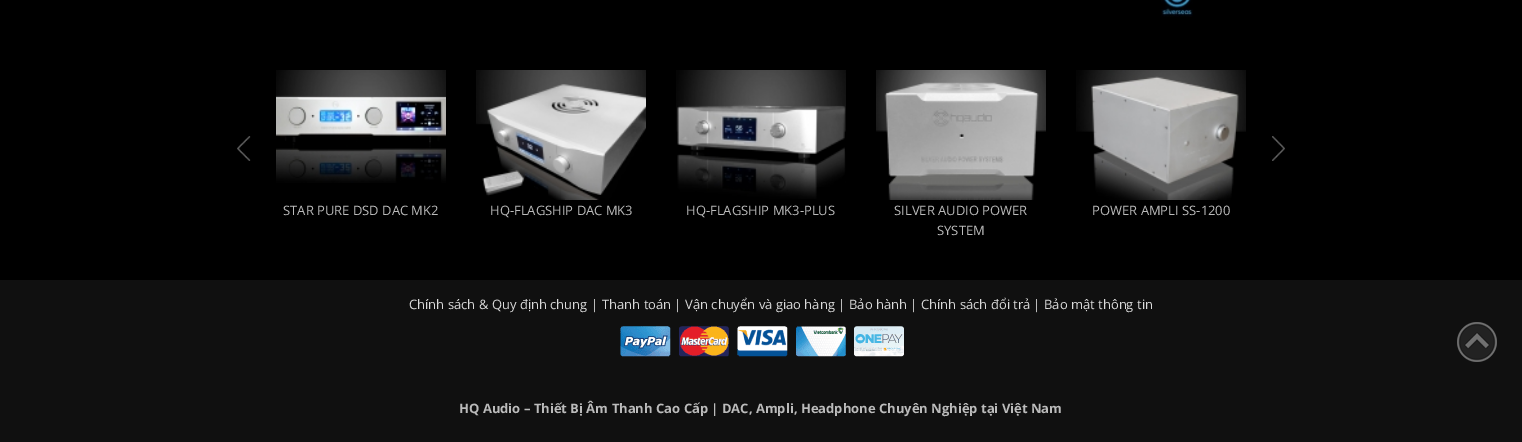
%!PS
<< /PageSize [1522 442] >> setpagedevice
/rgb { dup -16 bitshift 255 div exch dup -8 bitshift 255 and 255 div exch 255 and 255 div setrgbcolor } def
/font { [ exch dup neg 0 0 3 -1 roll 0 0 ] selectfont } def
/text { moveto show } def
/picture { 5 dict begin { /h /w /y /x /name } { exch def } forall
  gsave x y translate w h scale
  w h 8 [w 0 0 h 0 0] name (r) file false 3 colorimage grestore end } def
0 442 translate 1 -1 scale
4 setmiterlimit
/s1 { /OpenSans-Regular 13 font 16#BBBBBB rgb } def
/s2 { /OpenSans-Regular 13 font 16#DBDBDB rgb } def
/s3 { /OpenSans-Bold 13 font 16#BBBBBB rgb } def
16#000000 rgb
0 0 1522 442 rectfill
(pic1.raw) 1161 0 32 17 picture
(pic2.raw) 237 136 14 25 picture
(pic3.raw) 1272 136 13 25 picture
(pic4.raw) 276 70 170 113 picture
s1
(STAR PURE DSD DAC MK2) 283 215 text
(pic5.raw) 476 70 170 130 picture
(HQ-FLAGSHIP DAC MK3) 490 215 text
(pic6.raw) 676 70 170 129 picture
(HQ-FLAGSHIP MK3-PLUS) 686 215 text
(pic7.raw) 876 70 170 130 picture
(SILVER AUDIO POWER) 894 215 text
(SYSTEM) 937 235 text
(pic8.raw) 1076 70 170 130 picture
(POWER AMPLI SS-1200) 1092 215 text
16#101010 rgb
0 280 1522 162 rectfill
s2
(Chính sách & Quy định chung) 409 309 text
s1
(|) 591 309 text
s2
(Thanh toán) 602 309 text
s1
(|) 674 309 text
s2
(Vận chuyển và giao hàng) 685 309 text
s1
(|) 838 309 text
s2
(Bảo hành) 849 309 text
s1
(|) 910 309 text
s2
(Chính sách đổi trả) 921 309 text
s1
(|) 1033 309 text
s2
(Bảo mật thông tin) 1044 309 text
(pic9.raw) 620 326 284 31 picture
s3
(HQ Audio – Thiết Bị Âm Thanh Cao Cấp | DAC, Ampli, Headphone Chuyên Nghiệp tại Việt Nam) 459 413 text
(pic10.raw) 1457 322 40 40 picture
showpage
